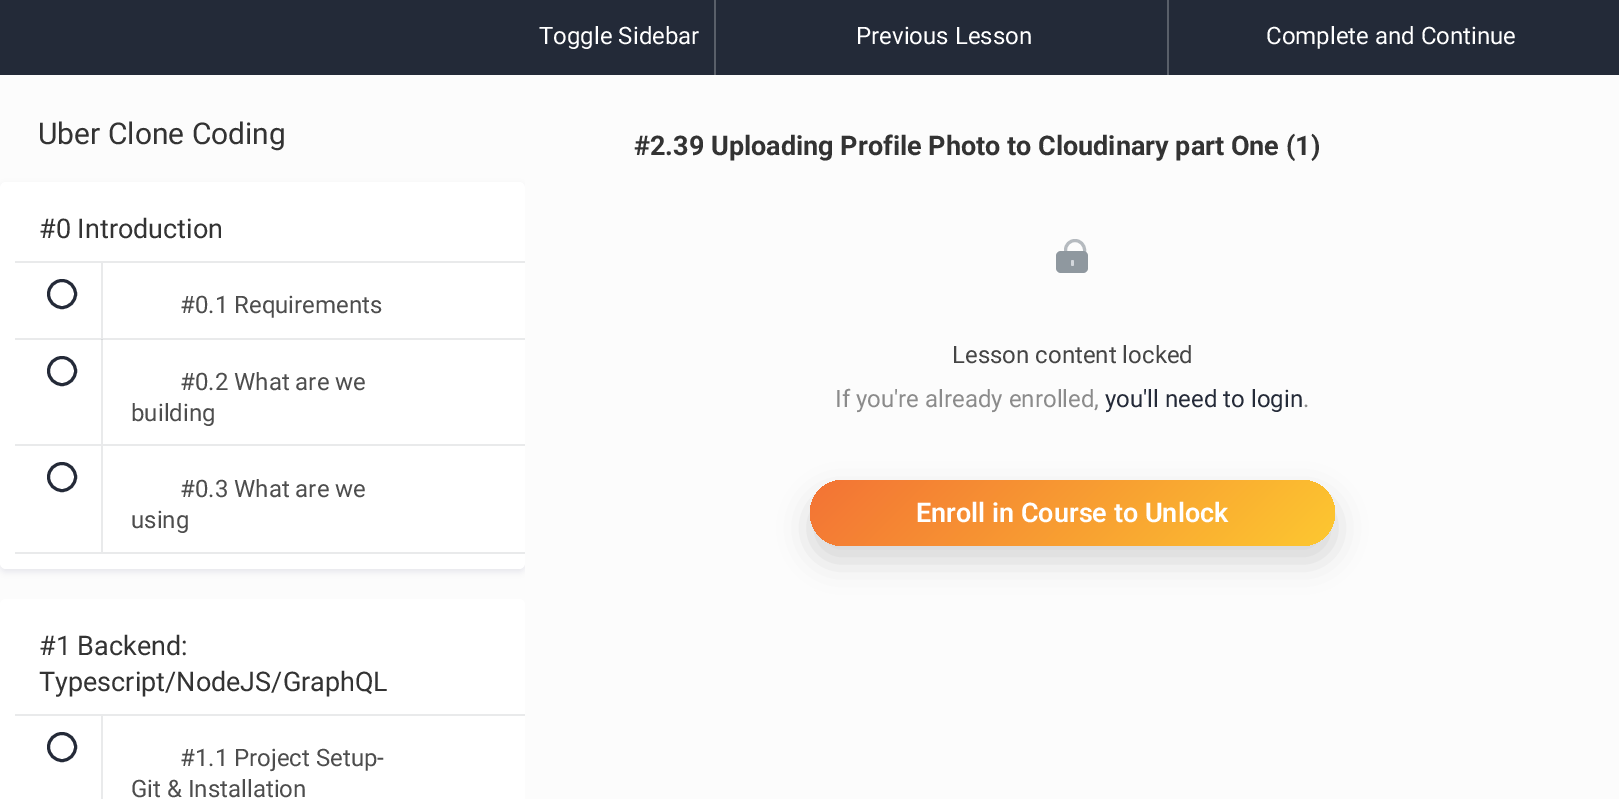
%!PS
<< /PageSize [1619 799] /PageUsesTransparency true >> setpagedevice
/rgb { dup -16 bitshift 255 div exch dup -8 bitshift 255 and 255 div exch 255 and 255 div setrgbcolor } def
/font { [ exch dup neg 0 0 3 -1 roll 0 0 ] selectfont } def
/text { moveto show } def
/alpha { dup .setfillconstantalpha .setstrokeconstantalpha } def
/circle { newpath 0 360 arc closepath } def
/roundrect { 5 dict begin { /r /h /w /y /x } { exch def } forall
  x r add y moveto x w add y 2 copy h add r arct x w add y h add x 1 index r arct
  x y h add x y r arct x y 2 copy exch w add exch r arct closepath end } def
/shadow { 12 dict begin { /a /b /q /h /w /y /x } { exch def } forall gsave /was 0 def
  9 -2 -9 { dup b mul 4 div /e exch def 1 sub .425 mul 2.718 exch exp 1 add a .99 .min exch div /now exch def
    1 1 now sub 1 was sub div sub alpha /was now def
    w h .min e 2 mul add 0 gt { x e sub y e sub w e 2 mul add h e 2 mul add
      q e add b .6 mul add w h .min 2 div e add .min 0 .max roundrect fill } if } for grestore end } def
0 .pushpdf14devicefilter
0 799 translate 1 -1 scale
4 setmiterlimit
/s1 { /Roboto-Regular 24 font 16#FFFFFF rgb } def
/s2 { /Roboto-Regular 30 font 16#333333 rgb } def
/s3 { /Roboto-Regular 27 font 16#333333 rgb } def
/s4 { /Roboto-Regular 24 font 16#4D4D4D rgb } def
/s5 { /Roboto-Bold 27 font 16#333333 rgb } def
/s6 { /Roboto-Regular 24 font 16#454545 rgb } def
/s7 { /Roboto-Regular 24 font 16#8B8B8B rgb } def
/s8 { /Roboto-Regular 24 font 16#242A38 rgb } def
/s9 { /Roboto-SemiBold 27 font 16#FFFFFF rgb } def
16#FCFCFC rgb
0 0 1619 799 rectfill
16#232A38 rgb
0 0 1619 75 rectfill
s1
(Toggle Sidebar) 539 44 text
16#595F69 rgb
714 0 2 75 rectfill
s1
(Previous Lesson) 856 44 text
16#595F69 rgb
1167 0 2 75 rectfill
s1
(Complete and Continue) 1266 44 text
s2
(Uber Clone Coding) 38 144 text
gsave
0 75 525 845 rectclip
16#32325D rgb
0 185 525 387 6 3 0.1 shadow
grestore
16#FFFFFF rgb
0 182 525 387 6 roundrect fill
16#E9EAEB rgb
101 339 2 105 rectfill
15 261 510 2 rectfill
s3
(#0 Introduction) 39 238 text
16#E9EAEB rgb
15 338 510 2 rectfill
16#D5D7D9 rgb
101 339 2 1 rectfill
16#242A38 rgb
3 setlinewidth
62 294 13.5 circle stroke
16#E9EAEB rgb
101 263 2 75 rectfill
s4
(#0.1 Requirements) 180 313 text
16#E9EAEB rgb
15 444 510 2 rectfill
16#242A38 rgb
62 371 13.5 circle stroke
s4
(#0.2 What are we) 180 390 text
(building) 131 421 text
16#E9EAEB rgb
15 552 510 2 rectfill
16#242A38 rgb
62 477 13.5 circle stroke
16#E9EAEB rgb
101 446 2 106 rectfill
s4
(#0.3 What are we) 180 497 text
(using) 131 528 text
16#FFFFFF rgb
6 599 moveto 519 599 lineto 522.5 599 525 601.5 525 605 curveto 525 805 lineto 0 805 lineto 0 605 lineto 0 601.5 2.5 599 6 599 curveto closepath fill
16#E9EAEB rgb
15 714 510 2 rectfill
s3
(#1 Backend:) 39 655 text
(Typescript/NodeJS/GraphQL) 39 691 text
16#242A38 rgb
62 747 13.5 circle stroke
16#E9EAEB rgb
101 716 2 83 rectfill
s4
(#1.1 Project Setup-) 180 766 text
(Git & Installation) 131 797 text
s5
(#2.39 Uploading Profile Photo to Cloudinary part One \(1\)) 634 155 text
16#B5BABF rgb
1065.5 240.5 19 30 9.5 roundrect stroke
16#8F989F rgb
1056 251 32 22 5 roundrect fill
16#D3D7DC rgb
1071 260 3 6 1.5 roundrect fill
s6
(Lesson content locked) 952 363 text
s7
(If you're already enrolled,) 835 407 text
s8
(you'll need to login) 1105 407 text
s7
(.) 1303 407 text
16#000000 rgb
810 495 525 66 33 15 0.15 shadow
gsave 810 480 525 66 33 roundrect clip newpath
<< /ShadingType 2 /ColorSpace /DeviceRGB /Coords [1220 661 925 365] /Extend [true true] /Function << /FunctionType 2 /Domain [0 1] /C0 [0.992 0.784 0.188] /C1 [0.953 0.451 0.208] /N 1 >> >> shfill grestore
s9
(Enroll in Course to Unlock) 916 522 text
.poppdf14devicefilter showpage
